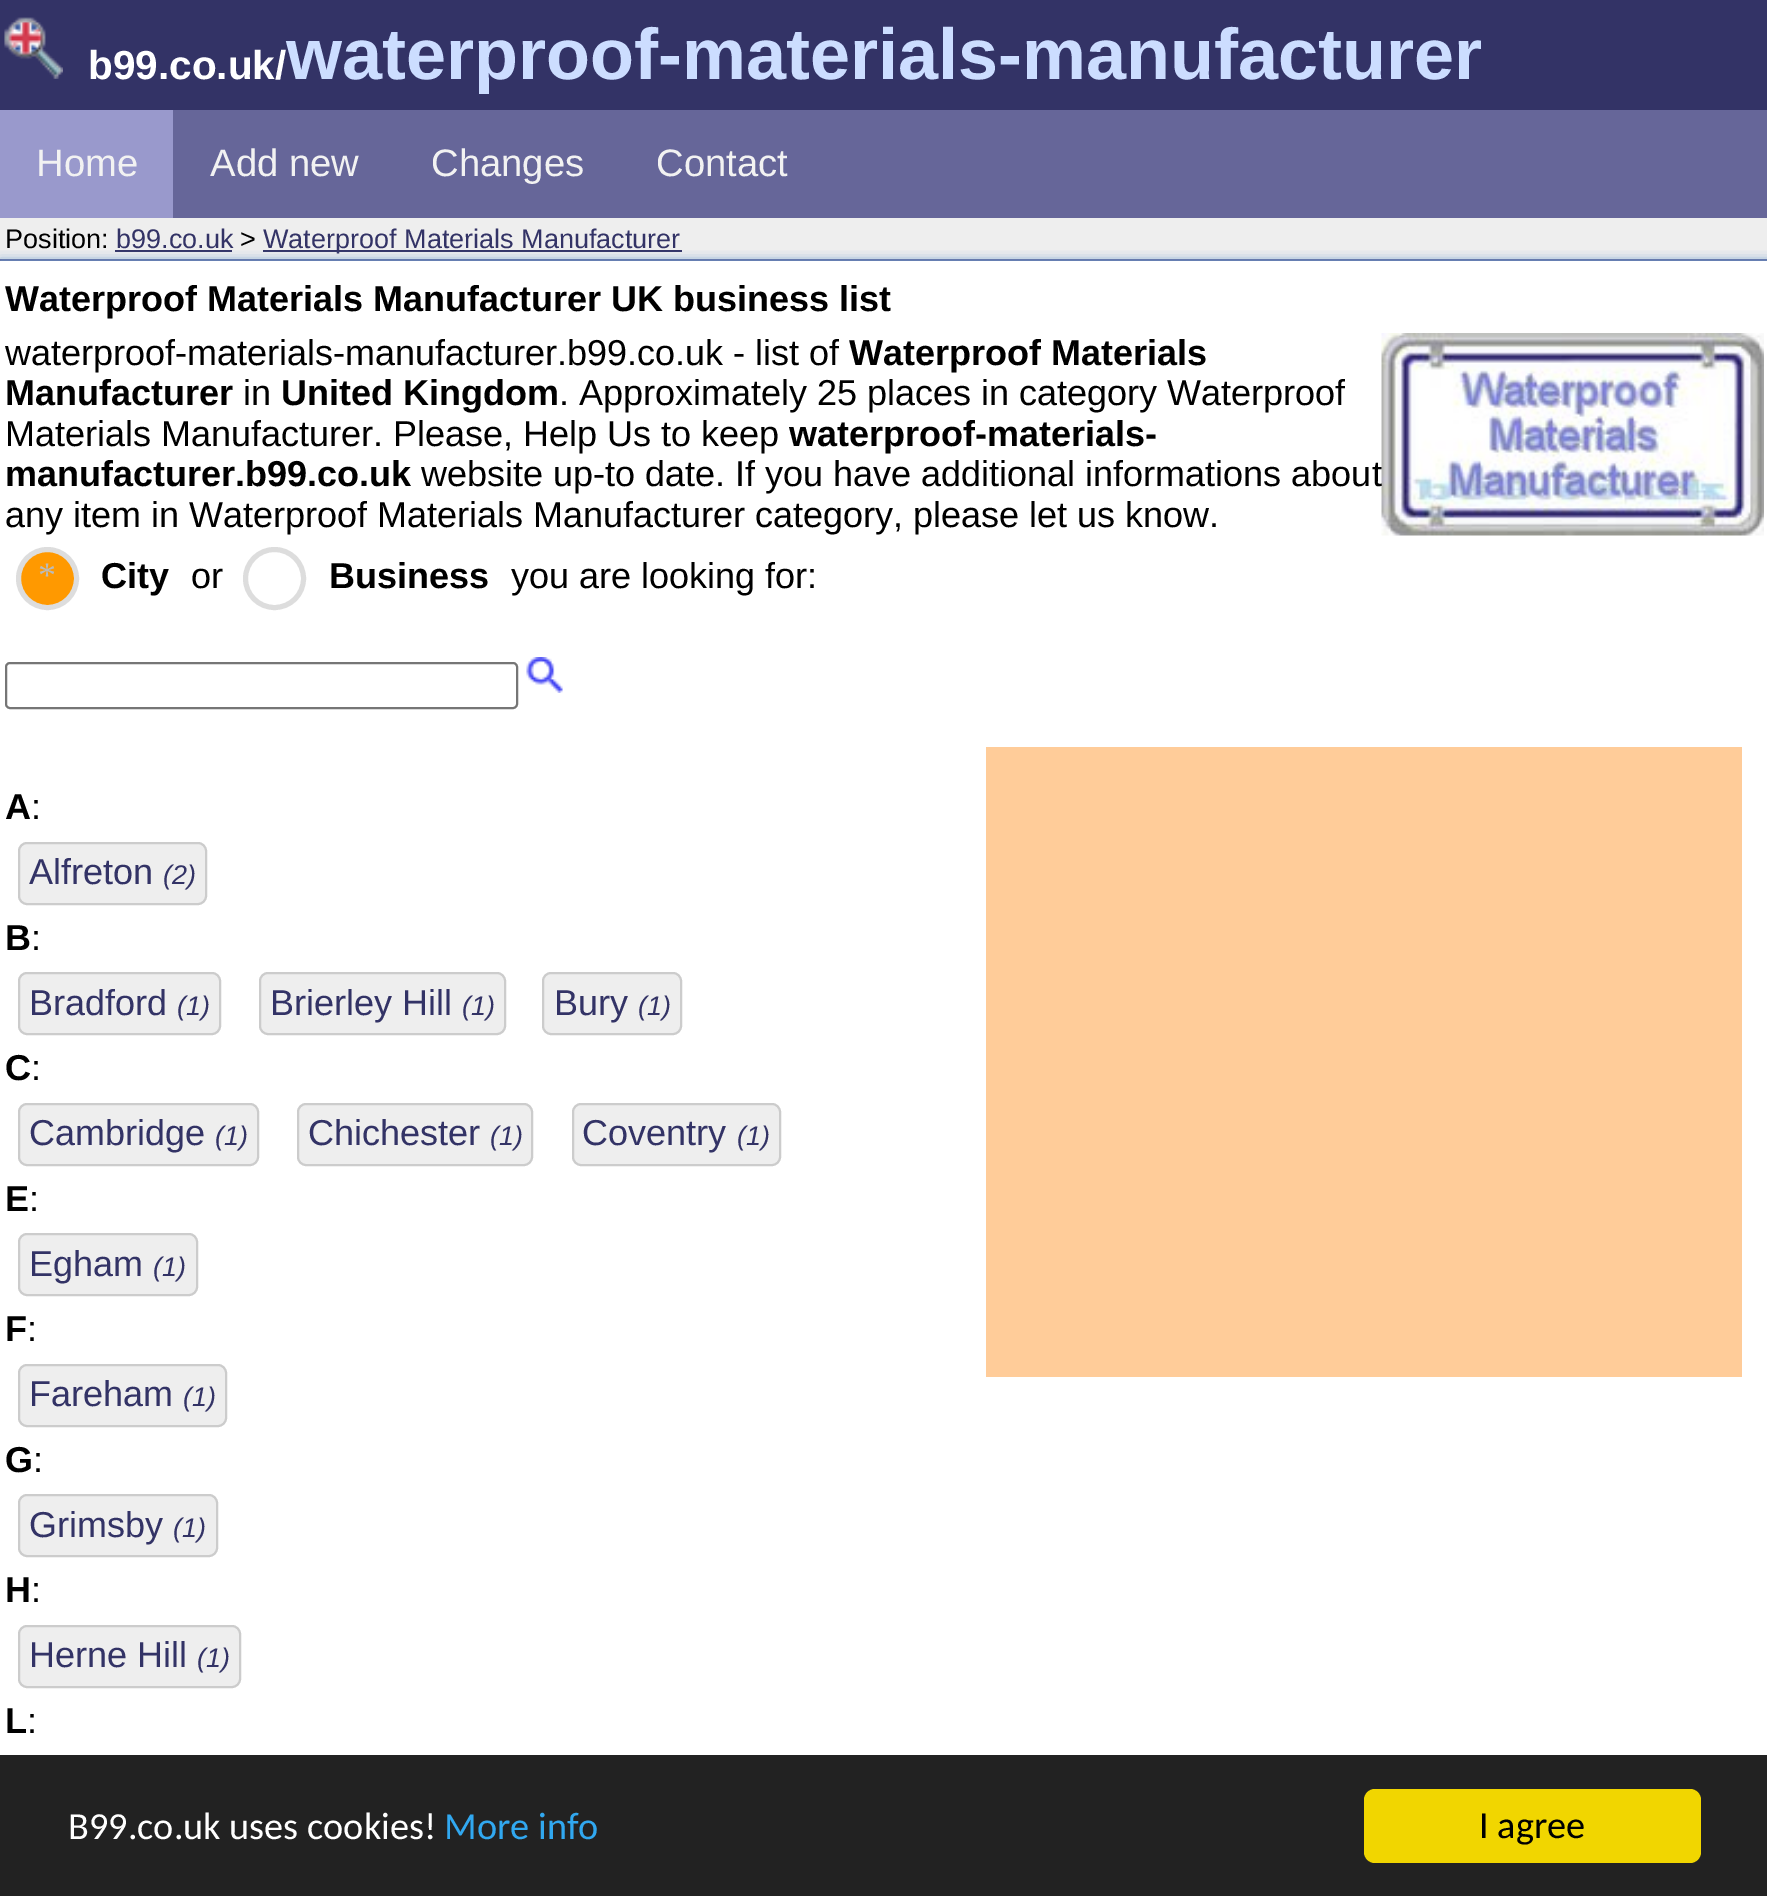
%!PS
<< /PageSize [1767 1896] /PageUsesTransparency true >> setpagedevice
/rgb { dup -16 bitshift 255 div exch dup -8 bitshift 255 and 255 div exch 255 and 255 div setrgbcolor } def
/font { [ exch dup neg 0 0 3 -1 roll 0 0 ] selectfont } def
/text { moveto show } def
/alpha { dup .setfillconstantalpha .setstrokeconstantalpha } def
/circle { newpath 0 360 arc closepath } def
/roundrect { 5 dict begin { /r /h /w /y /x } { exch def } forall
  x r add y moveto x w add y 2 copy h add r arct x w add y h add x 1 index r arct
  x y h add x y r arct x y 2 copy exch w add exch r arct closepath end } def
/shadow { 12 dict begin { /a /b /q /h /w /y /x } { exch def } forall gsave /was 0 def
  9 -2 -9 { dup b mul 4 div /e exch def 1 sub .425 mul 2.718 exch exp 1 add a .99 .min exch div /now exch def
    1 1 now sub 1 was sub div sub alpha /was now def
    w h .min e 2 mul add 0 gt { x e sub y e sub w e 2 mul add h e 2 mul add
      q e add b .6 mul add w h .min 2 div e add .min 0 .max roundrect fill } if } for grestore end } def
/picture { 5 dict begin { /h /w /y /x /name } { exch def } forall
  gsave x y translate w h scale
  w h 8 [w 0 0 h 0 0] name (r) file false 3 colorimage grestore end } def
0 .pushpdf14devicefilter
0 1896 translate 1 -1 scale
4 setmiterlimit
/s1 { /LiberationSans-Bold 40.5 font 16#FFFFFF rgb } def
/s2 { /LiberationSans-Bold 72 font 16#CCDDFF rgb } def
/s3 { /LiberationSans-Regular 38.25 font 16#F2F2F2 rgb } def
/s4 { /LiberationSans-Regular 27 font 16#000000 rgb } def
/s5 { /LiberationSans-Regular 27 font 16#333366 rgb } def
/s6 { /LiberationSans-Bold 36 font 16#000000 rgb } def
/s7 { /LiberationSans-Regular 36 font 16#000000 rgb } def
/s8 { /LiberationSerif-Regular 36 font 16#BBBBBB rgb } def
/s9 { /LiberationSans-Regular 36 font 16#333366 rgb } def
/s10 { /LiberationSans-Italic 27 font 16#333366 rgb } def
/s11 { /Carlito-Regular 38.25 font 16#FFFFFF rgb } def
/s12 { /Carlito-Regular 38.25 font 16#31A8F0 rgb } def
/s13 { /Carlito-Regular 38.25 font 16#000000 rgb } def
16#FFFFFF rgb
0 0 1767 1896 rectfill
16#333366 rgb
0 0 1767 110 rectfill
(pic1.raw) 4 17 59 62 picture
s1
(b99.co.uk/) 88 79 text
s2
(waterproof-materials-manufacturer) 286 79 text
16#666699 rgb
173 110 1594 108 rectfill
16#9999CC rgb
0 110 173 108 rectfill
s3
(Home) 36 176 text
(Add new) 210 176 text
(Changes) 431 176 text
(Contact) 656 176 text
16#EEEEEE rgb
0 218 1767 41 rectfill
16#666699 rgb
0 259 1767 2 rectfill
s4
(Position:) 5 248 text
s5
(b99.co.uk) 116 248 text
115 250 117 2 rectfill
s4
(>) 240 248 text
16#333366 rgb
263 250 419 2 rectfill
(Waterproof Materials Manufacturer) 263 248 text
gsave
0 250 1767 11 rectclip
16#6699CC rgb
0 261 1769 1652 0 5.5 1 shadow
grestore
s6
(Waterproof Materials Manufacturer UK business list) 5 311 text
s7
(waterproof-materials-manufacturer.b99.co.uk - list of) 5 365 text
s6
(Waterproof Materials) 849 365 text
(pic2.raw) 1381 333 383 203 picture
(Manufacturer) 5 405 text
s7
(in) 243 405 text
s6
(United Kingdom) 281 405 text
s7
(. Approximately 25 places in category Waterproof) 559 405 text
(Materials Manufacturer. Please, Help Us to keep) 5 446 text
s6
(waterproof-materials-) 789 446 text
(manufacturer.b99.co.uk) 5 486 text
s7
(website up-to date. If you have additional informations about) 421 486 text
(any item in Waterproof Materials Manufacturer category, please let us know.) 5 527 text
16#FF9900 rgb
47.5 578.5 29 circle gsave fill grestore
16#DDDDDD rgb
5 setlinewidth
stroke
s8
(*) 38 587 text
s6
(City) 101 588 text
s7
(or) 191 588 text
16#DDDDDD rgb
274.5 578.5 29 circle stroke
s6
(Business) 329 588 text
s7
(you are looking for:) 511 588 text
16#767676 rgb
2 setlinewidth
6 663 511 45 4 roundrect stroke
(pic3.raw) 526 657 37 36 picture
s6
(A) 5 819 text
s7
(:) 31 819 text
16#EEEEEE rgb
19 843 187 61 8 roundrect gsave fill grestore
16#CCCCCC rgb
stroke
s9
(Alfreton) 29 884 text
s10
(\(2\)) 163 884 text
s6
(B) 5 950 text
s7
(:) 31 950 text
16#EEEEEE rgb
19 973 201 61 8 roundrect gsave fill grestore
16#CCCCCC rgb
stroke
s9
(Bradford) 29 1015 text
s10
(\(1\)) 177 1015 text
16#EEEEEE rgb
260 973 245 61 8 roundrect gsave fill grestore
16#CCCCCC rgb
stroke
s9
(Brierley Hill) 270 1015 text
s10
(\(1\)) 462 1015 text
16#EEEEEE rgb
543 973 138 61 8 roundrect gsave fill grestore
16#CCCCCC rgb
stroke
s9
(Bury) 554 1015 text
s10
(\(1\)) 638 1015 text
s6
(C) 5 1080 text
s7
(:) 31 1080 text
16#EEEEEE rgb
19 1104 239 61 8 roundrect gsave fill grestore
16#CCCCCC rgb
stroke
s9
(Cambridge) 29 1145 text
s10
(\(1\)) 215 1145 text
16#EEEEEE rgb
298 1104 234 61 8 roundrect gsave fill grestore
16#CCCCCC rgb
stroke
s9
(Chichester) 308 1145 text
s10
(\(1\)) 490 1145 text
16#EEEEEE rgb
573 1104 207 61 8 roundrect gsave fill grestore
16#CCCCCC rgb
stroke
s9
(Coventry) 582 1145 text
s10
(\(1\)) 737 1145 text
s6
(E) 5 1211 text
s7
(:) 29 1211 text
16#EEEEEE rgb
19 1234 178 61 8 roundrect gsave fill grestore
16#CCCCCC rgb
stroke
s9
(Egham) 29 1276 text
s10
(\(1\)) 153 1276 text
s6
(F) 5 1341 text
s7
(:) 27 1341 text
16#EEEEEE rgb
19 1365 207 61 8 roundrect gsave fill grestore
16#CCCCCC rgb
stroke
s9
(Fareham) 29 1406 text
s10
(\(1\)) 183 1406 text
s6
(G) 5 1472 text
s7
(:) 33 1472 text
16#EEEEEE rgb
19 1495 198 61 8 roundrect gsave fill grestore
16#CCCCCC rgb
stroke
s9
(Grimsby) 29 1537 text
s10
(\(1\)) 173 1537 text
s6
(H) 5 1602 text
s7
(:) 31 1602 text
16#EEEEEE rgb
19 1626 221 61 8 roundrect gsave fill grestore
16#CCCCCC rgb
stroke
s9
(Herne Hill) 29 1667 text
s10
(\(1\)) 197 1667 text
s6
(L) 5 1733 text
s7
(:) 27 1733 text
16#FFCC99 rgb
986 747 756 630 rectfill
16#222222 rgb
0 1755 1767 141 rectfill
s11
(B99.co.uk uses cookies!) 68 1839 text
s12
(More info) 444 1839 text
16#F1D600 rgb
1364 1789 337 74 11 roundrect fill
s13
(I agree) 1479 1838 text
.poppdf14devicefilter showpage
